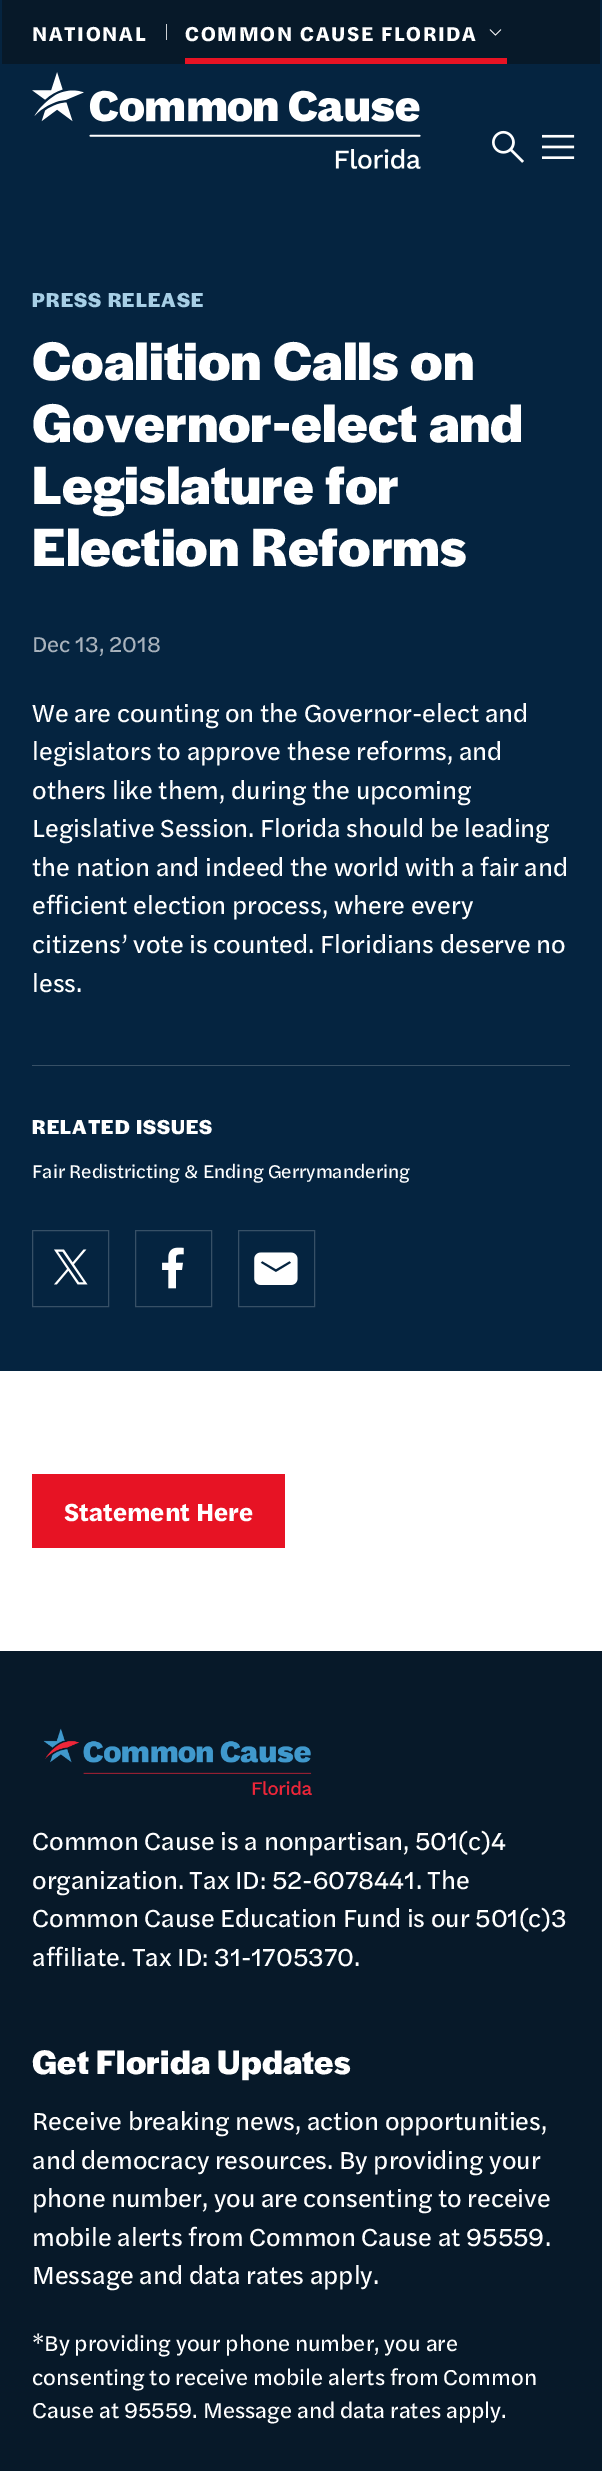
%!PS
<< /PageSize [602 2471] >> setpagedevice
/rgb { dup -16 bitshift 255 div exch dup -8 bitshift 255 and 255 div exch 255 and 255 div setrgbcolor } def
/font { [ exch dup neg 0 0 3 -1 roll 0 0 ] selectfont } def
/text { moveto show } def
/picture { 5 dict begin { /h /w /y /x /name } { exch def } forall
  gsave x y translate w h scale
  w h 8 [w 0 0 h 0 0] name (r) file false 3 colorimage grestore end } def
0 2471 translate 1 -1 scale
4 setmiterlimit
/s1 { /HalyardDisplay-Bold 56.25 font 16#FFFFFF rgb } def
/s2 { /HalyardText-Regular 22.5 font 16#A8B2BC rgb } def
/s3 { /HalyardText-Regular 25.7 font 16#FFFFFF rgb } def
/s4 { /HalyardText-Regular 19.25 font 16#FFFFFF rgb } def
/s5 { /HalyardText-Bold 25.7 font 16#FFFFFF rgb } def
/s6 { /HalyardText-Regular 22.5 font 16#FFFFFF rgb } def
16#FFFFFF rgb
0 0 602 2471 rectfill
16#052440 rgb
0 0 602 1371 rectfill
16#071929 rgb
2 0 598 64 rectfill
/HalyardText-Bold 20.9 font
16#FFFFFF rgb
32 41 moveto 1.7 0 (NATIONAL) ashow
16#E71324 rgb
185 58 322 6 rectfill
16#CDD1D4 rgb
166 24 1 16 rectfill
16#FFFFFF rgb
185 41 moveto 1.7 0 (COMMON CAUSE FLORIDA) ashow
(pic1.raw) 489 29 13 7 picture
(pic2.raw) 32 72 389 97 picture
(pic3.raw) 492 130 32 33 picture
(pic4.raw) 542 134 33 25 picture
/HalyardDisplay-Bold 20.9 font
16#A7CFE6 rgb
32 307 moveto 1 0 (PRESS RELEASE) ashow
s1
(Coalition Calls on) 32 380 text
(Governor-elect and) 32 442 text
(Legislature for) 32 504 text
(Election Reforms) 32 566 text
s2
(Dec 13, 2018) 32 652 text
s3
(We are counting on the Governor-elect and) 32 722 text
(legislators to approve these reforms, and) 32 760 text
(others like them, during the upcoming) 32 799 text
(Legislative Session. Florida should be leading) 32 837 text
(the nation and indeed the world with a fair and) 32 876 text
(efficient election process, where every) 32 914 text
(citizens’ vote is counted. Floridians deserve no) 32 953 text
(less.) 32 992 text
16#375066 rgb
32 1065 538 1 rectfill
/HalyardDisplay-Bold 20.9 font
16#FFFFFF rgb
32 1134 moveto 1 0 (RELATED ISSUES) ashow
s4
(Fair Redistricting & Ending Gerrymandering) 32 1178 text
16#375066 rgb
32.5 1230.5 76 76 rectstroke
(pic5.raw) 54 1249 34 36 picture
135.5 1230.5 76 76 rectstroke
(pic6.raw) 162 1247 22 42 picture
238.5 1230.5 76 76 rectstroke
(pic7.raw) 254 1252 44 33 picture
16#E71324 rgb
32 1474 253 74 rectfill
s5
(Statement Here) 64 1521 text
16#071929 rgb
0 1651 602 820 rectfill
(pic8.raw) 43 1728 269 68 picture
s3
(Common Cause is a nonpartisan, 501\(c\)4) 32 1850 text
(organization. Tax ID: 52-6078441. The) 32 1889 text
(Common Cause Education Fund is our 501\(c\)3) 32 1927 text
(affiliate. Tax ID: 31-1705370.) 32 1966 text
/HalyardDisplay-Bold 35.25 font
32 2074 moveto 0.2 0 (Get Florida Updates) ashow
s3
(Receive breaking news, action opportunities,) 32 2130 text
(and democracy resources. By providing your) 32 2169 text
(phone number, you are consenting to receive) 32 2207 text
(mobile alerts from Common Cause at 95559.) 32 2246 text
(Message and data rates apply.) 32 2284 text
s6
(*By providing your phone number, you are) 32 2351 text
(consenting to receive mobile alerts from Common) 32 2385 text
(Cause at 95559. Message and data rates apply.) 32 2418 text
showpage
